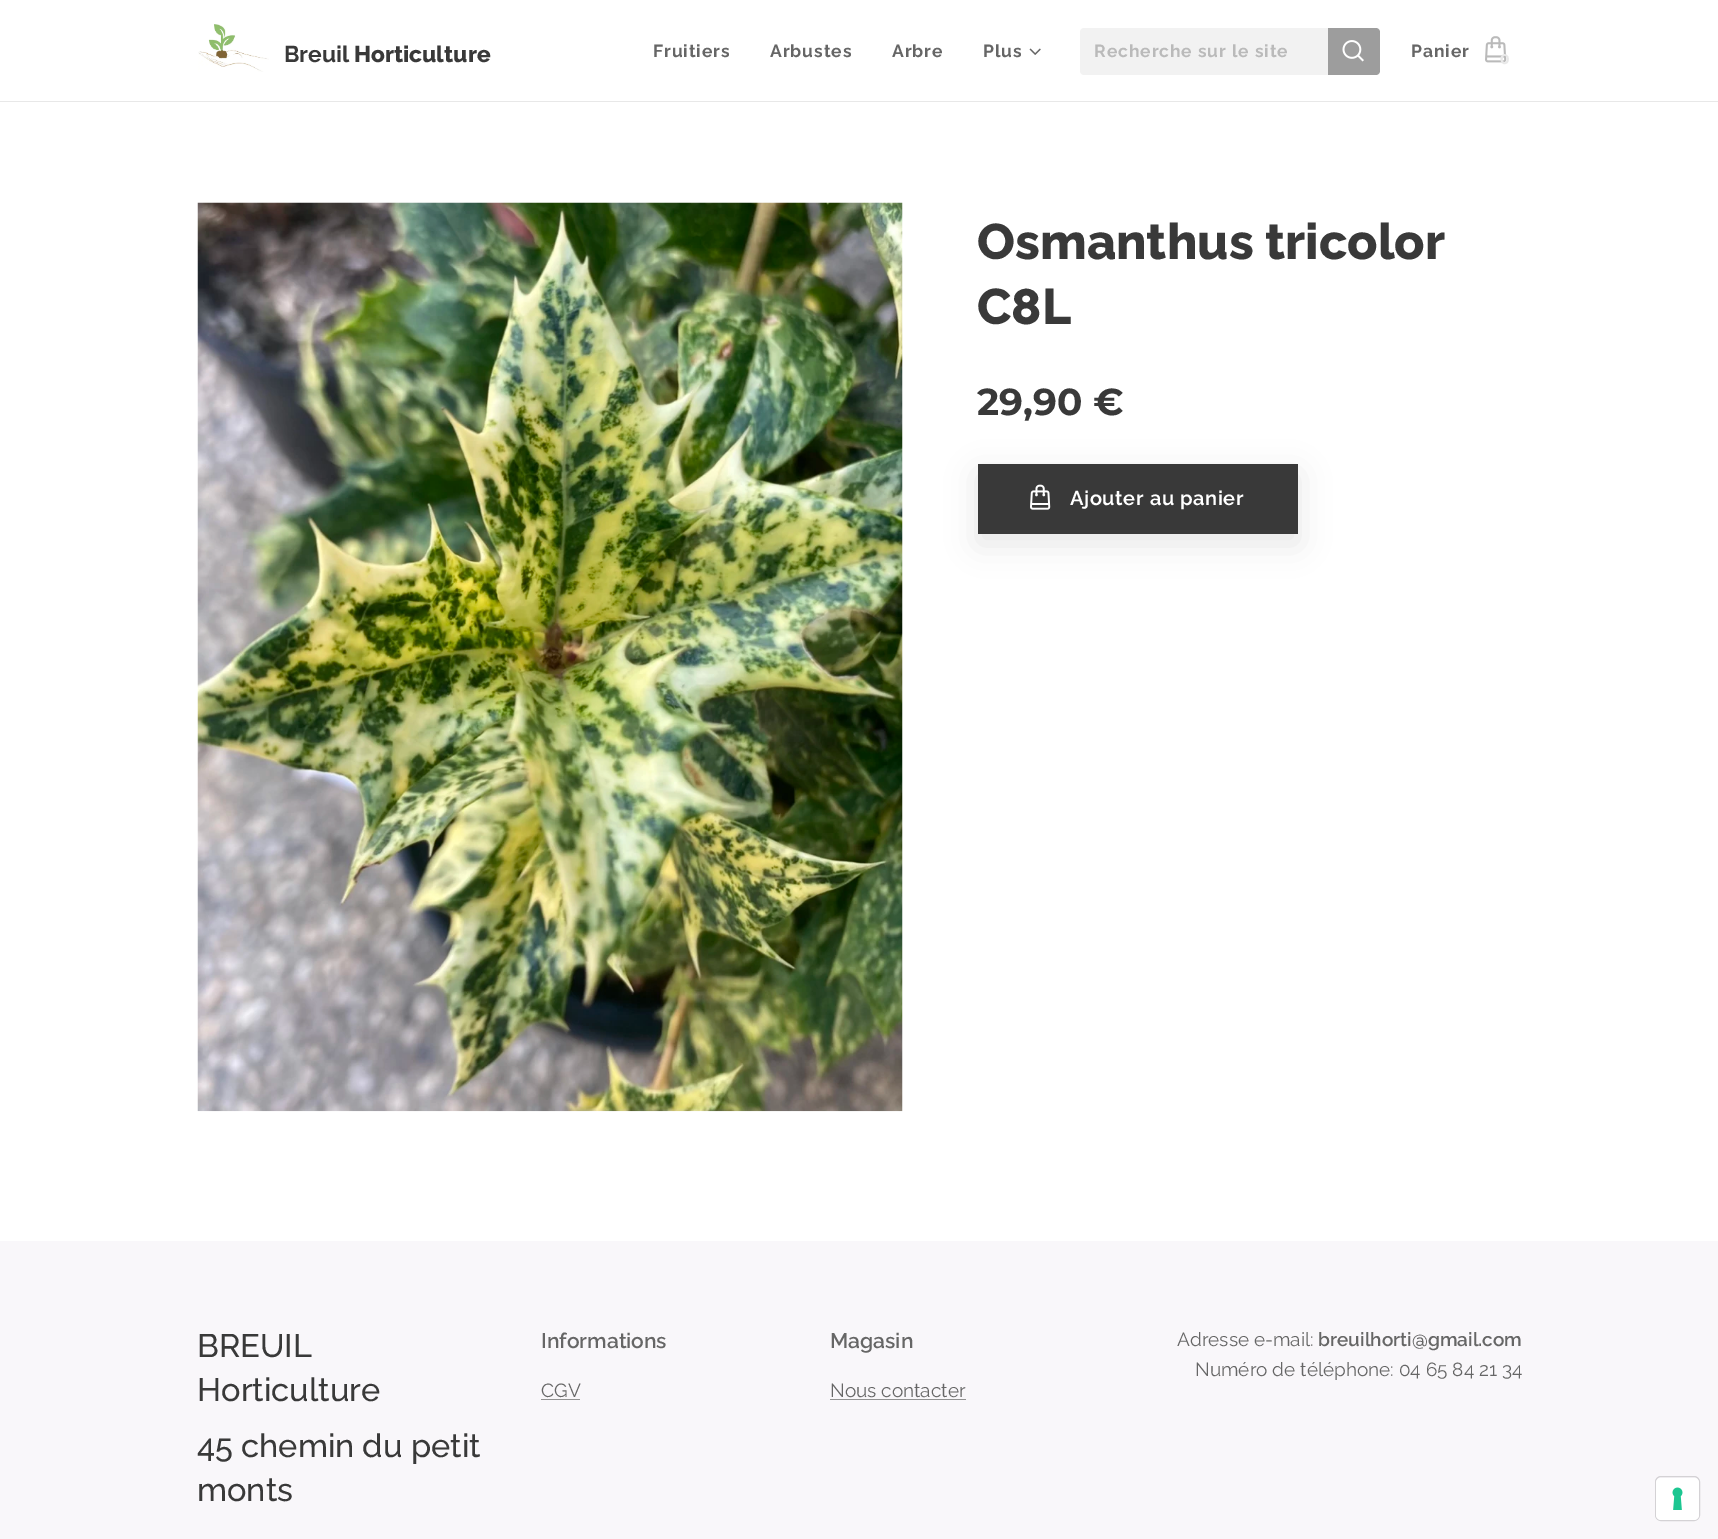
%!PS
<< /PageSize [1718 1539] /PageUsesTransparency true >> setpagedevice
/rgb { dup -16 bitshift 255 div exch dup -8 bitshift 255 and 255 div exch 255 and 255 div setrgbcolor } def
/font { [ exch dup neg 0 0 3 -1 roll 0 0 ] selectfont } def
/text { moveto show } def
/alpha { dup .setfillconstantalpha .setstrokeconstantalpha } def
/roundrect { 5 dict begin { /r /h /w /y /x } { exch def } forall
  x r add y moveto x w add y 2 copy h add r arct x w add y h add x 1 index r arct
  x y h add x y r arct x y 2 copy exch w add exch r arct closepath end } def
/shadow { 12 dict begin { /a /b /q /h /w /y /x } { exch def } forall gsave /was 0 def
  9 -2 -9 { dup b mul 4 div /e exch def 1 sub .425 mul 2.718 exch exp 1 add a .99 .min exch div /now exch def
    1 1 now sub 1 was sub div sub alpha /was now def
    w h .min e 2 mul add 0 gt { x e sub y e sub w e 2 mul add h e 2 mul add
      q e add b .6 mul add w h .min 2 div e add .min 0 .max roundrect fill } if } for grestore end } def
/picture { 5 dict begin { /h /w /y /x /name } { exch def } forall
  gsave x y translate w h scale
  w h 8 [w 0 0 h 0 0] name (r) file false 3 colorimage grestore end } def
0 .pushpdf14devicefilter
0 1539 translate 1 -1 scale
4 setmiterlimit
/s1 { /Raleway-Bold 22.75 font 16#393939 rgb } def
/s2 { /Raleway-ExtraBold 22.75 font 16#393939 rgb } def
/s3 { /Montserrat-Bold 14 font 16#E8E8E8 rgb } def
/s4 { /Raleway-ExtraBold 50 font 16#393939 rgb } def
/s5 { /Montserrat-Bold 37.5 font 16#393939 rgb } def
/s6 { /Raleway-Medium 32.5 font 16#393939 rgb } def
/s7 { /Raleway-SemiBold 21 font 16#666666 rgb } def
/s8 { /Raleway-Regular 19 font 16#666666 rgb } def
/s9 { /Raleway-SemiBold 19 font 16#666666 rgb } def
16#FFFFFF rgb
0 0 1718 1539 rectfill
(pic1.raw) 198 24 71 48 picture
s1
(Breuil) 284 62 text
s2
(Horticulture) 354 62 text
/Raleway-Bold 17.5 font
16#666666 rgb
653 57 moveto 0.9 0 (Fruitiers) ashow
770 57 moveto 0.9 0 (Arbustes) ashow
892 57 moveto 0.9 0 (Arbre) ashow
983 57 moveto 0.9 0 (Plus) ashow
(pic2.raw) 1029 48 12 7 picture
16#F2F2F2 rgb
1084 28 moveto 1328 28 lineto 1328 75 lineto 1084 75 lineto 1082 75 1080 73 1080 71 curveto 1080 32 lineto 1080 30 1082 28 1084 28 curveto closepath fill
16#BABABA rgb
1094 57 moveto 0.9 0 (Recherche sur le site) ashow
16#9D9D9D rgb
1328 28 moveto 1376 28 lineto 1378 28 1380 30 1380 32 curveto 1380 71 lineto 1380 73 1378 75 1376 75 curveto 1328 75 lineto closepath fill
(pic3.raw) 1342 40 22 22 picture
16#666666 rgb
1411 57 moveto 0.9 0 (Panier) ashow
(pic4.raw) 1485 36 22 27 picture
s3
(0) 1500 64 text
0 101 1718 1 rectfill
(pic5.raw) 197 202 706 910 picture
s4
(Osmanthus tricolor) 977 259 text
(C8L) 977 324 text
s5
(29,90 €) 977 415 text
16#000000 rgb
978 474 320 70 0 15.5 0.1 shadow
16#393939 rgb
978 464 320 70 rectfill
(pic6.raw) 1030 484 21 26 picture
/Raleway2-SemiBold 20 font
16#FFFFFF rgb
1070 505 moveto 0.6 0 (Ajouter au panier) ashow
16#F9F7FA rgb
0 1241 1718 298 rectfill
s6
(BREUIL) 197 1357 text
(Horticulture) 197 1401 text
(45 chemin du petit) 197 1457 text
(monts) 197 1501 text
s7
(Informations) 541 1348 text
s8
(CGV) 541 1397 text
16#929292 rgb
541 1399 39 1 rectfill
s7
(Magasin) 830 1348 text
s8
(Nous contacter) 830 1397 text
16#929292 rgb
830 1399 136 1 rectfill
s8
(Adresse e-mail:) 1177 1346 text
s9
(breuilhorti@gmail.com) 1318 1346 text
s8
(Numéro de téléphone: 04 65 84 21 34) 1195 1376 text
16#D4D2D5 rgb
1655.5 1476.5 44 44 5.5 roundrect stroke
16#FFFFFF rgb
1656 1478 43 42 5 roundrect fill
(pic7.raw) 1672 1487 11 23 picture
.poppdf14devicefilter showpage
